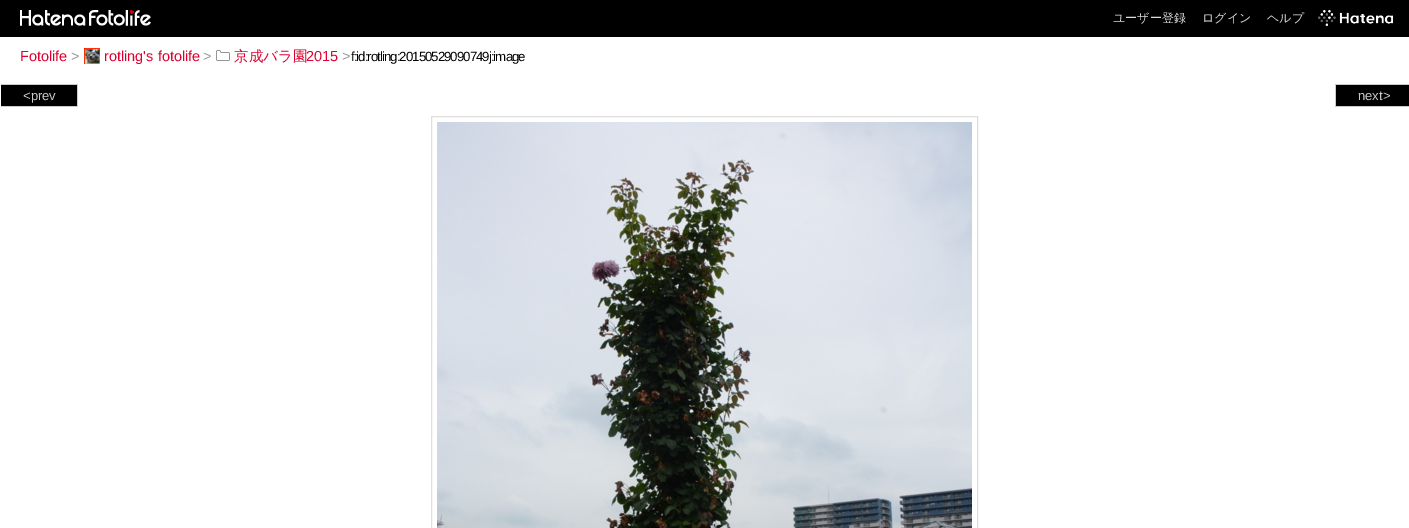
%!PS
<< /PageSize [1409 528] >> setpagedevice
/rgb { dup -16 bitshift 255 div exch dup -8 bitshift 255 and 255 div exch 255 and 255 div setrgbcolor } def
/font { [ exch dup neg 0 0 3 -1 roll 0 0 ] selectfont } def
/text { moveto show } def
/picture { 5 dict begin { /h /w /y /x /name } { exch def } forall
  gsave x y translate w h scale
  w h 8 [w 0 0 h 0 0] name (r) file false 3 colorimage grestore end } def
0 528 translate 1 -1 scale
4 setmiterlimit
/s1 { /WenQuanYiZenHei-Medium 12 font 16#DDDDDD rgb } def
/s2 { /LiberationSans-Regular 14.5 font 16#DE002F rgb } def
/s3 { /LiberationSans-Regular 14.5 font 16#999999 rgb } def
/s4 { /WenQuanYiZenHei-Medium 14.5 font 16#DE002F rgb } def
/s5 { /LiberationSans-Regular 13 font 16#CCCCCC rgb } def
16#FFFFFF rgb
0 0 1409 528 rectfill
16#000000 rgb
0 0 1409 37 rectfill
(pic1.raw) 20 10 66 16 picture
(pic2.raw) 89 10 62 16 picture
s1
(ユーザー登録) 1113 22 text
(ログイン) 1202 22 text
(ヘルプ) 1267 22 text
(pic3.raw) 1318 10 75 16 picture
s2
(Fotolife) 20 61 text
s3
(>) 71 61 text
(pic4.raw) 84 48 16 16 picture
s2
(rotling's fotolife) 104 61 text
s3
(>) 203 61 text
(pic5.raw) 216 50 14 11 picture
s4
(京成バラ園) 234 61 text
s2
(2015) 306 61 text
s3
(>) 342 61 text
/LiberationSans-Regular 13.3 font
16#000000 rgb
351 61 moveto -1 0 (f:id:rotling:20150529090749j:image) ashow
1 85 76 21 rectfill
16#CCCCCC rgb
1 84 77 1 rectfill
77 84 1 23 rectfill
1 106 77 1 rectfill
s5
(<prev) 23 100 text
16#000000 rgb
1336 85 73 21 rectfill
16#CCCCCC rgb
1335 84 74 1 rectfill
1335 106 74 1 rectfill
1335 84 1 23 rectfill
(next>) 1358 100 text
16#DEDEDE rgb
431.5 116.5 546 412 rectstroke
(pic6.raw) 437 122 535 406 picture
showpage
